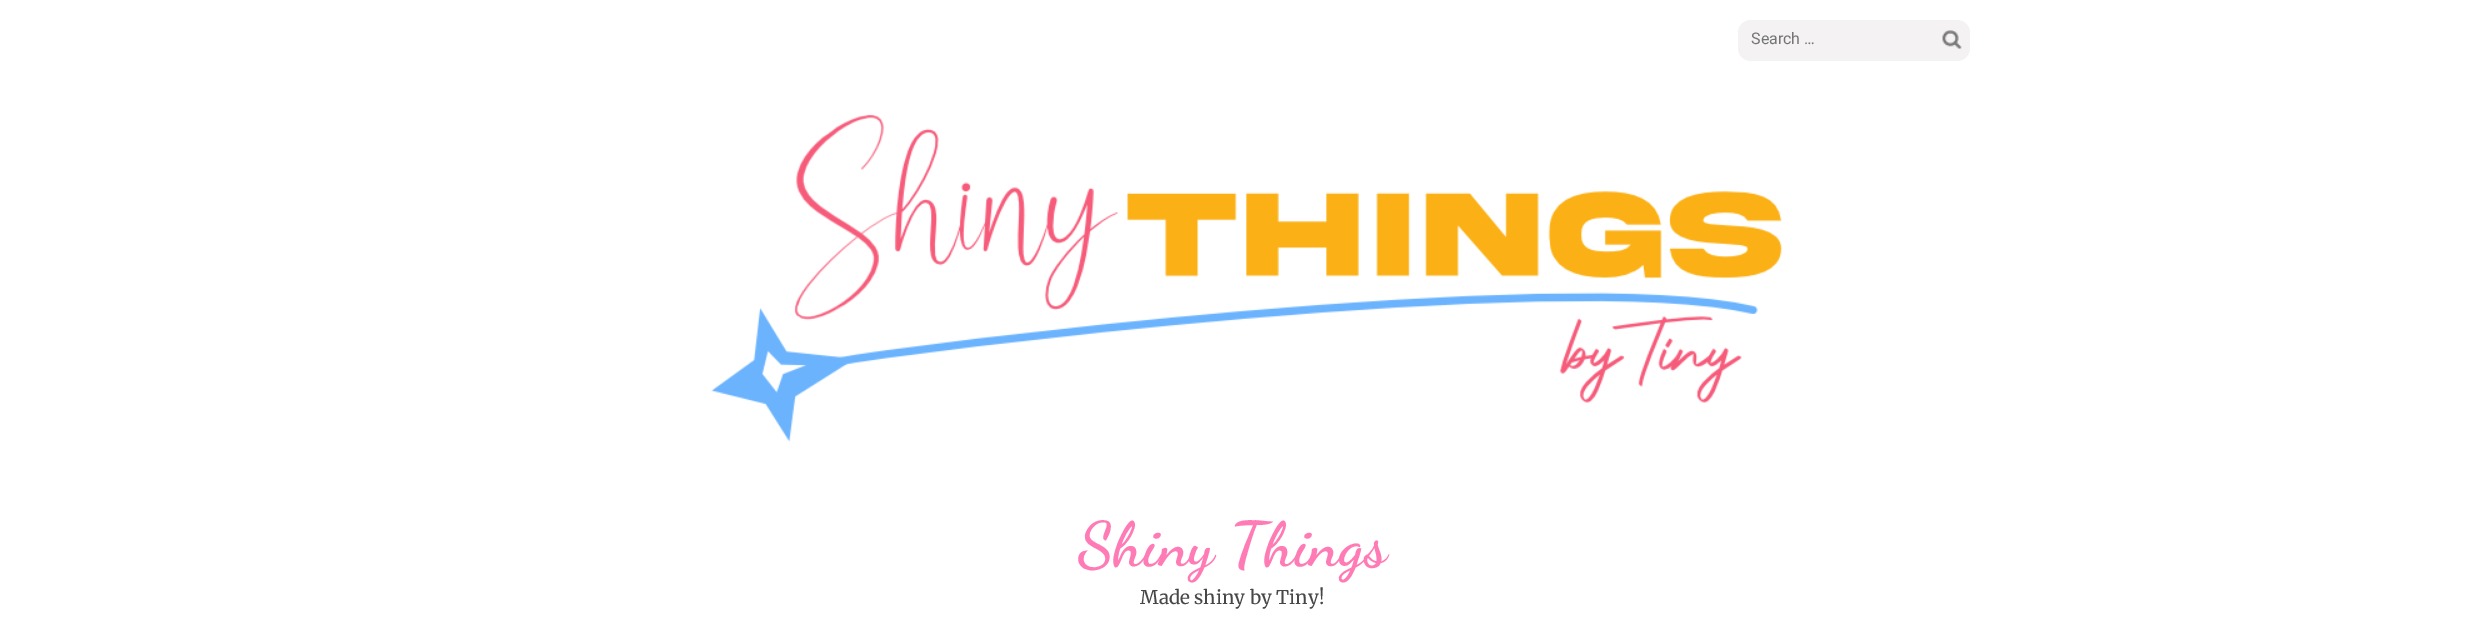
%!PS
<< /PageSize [2465 626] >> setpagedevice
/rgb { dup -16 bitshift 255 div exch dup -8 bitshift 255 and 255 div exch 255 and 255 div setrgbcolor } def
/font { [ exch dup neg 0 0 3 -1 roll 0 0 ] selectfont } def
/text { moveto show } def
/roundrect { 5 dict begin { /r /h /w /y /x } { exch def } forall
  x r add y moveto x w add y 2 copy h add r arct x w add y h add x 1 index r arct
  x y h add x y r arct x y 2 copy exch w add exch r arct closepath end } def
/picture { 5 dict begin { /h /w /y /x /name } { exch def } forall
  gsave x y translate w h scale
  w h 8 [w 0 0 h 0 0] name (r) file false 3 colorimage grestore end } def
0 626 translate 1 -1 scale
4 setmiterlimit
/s1 { /Roboto-Regular 16 font 16#757575 rgb } def
/s2 { /DancingScript-Bold 62.5 font 16#FE7BB5 rgb } def
/s3 { /Merriweather-Regular 18.75 font 16#474747 rgb } def
16#FFFFFF rgb
0 0 2465 626 rectfill
16#F4F2F3 rgb
1738 20 232 41 13 roundrect fill
s1
(Search …) 1751 44 text
(pic1.raw) 1942 30 20 19 picture
(pic2.raw) 711 114 1071 328 picture
s2
(Shiny Things) 1078 565 text
s3
(Made shiny by Tiny!) 1140 604 text
showpage
